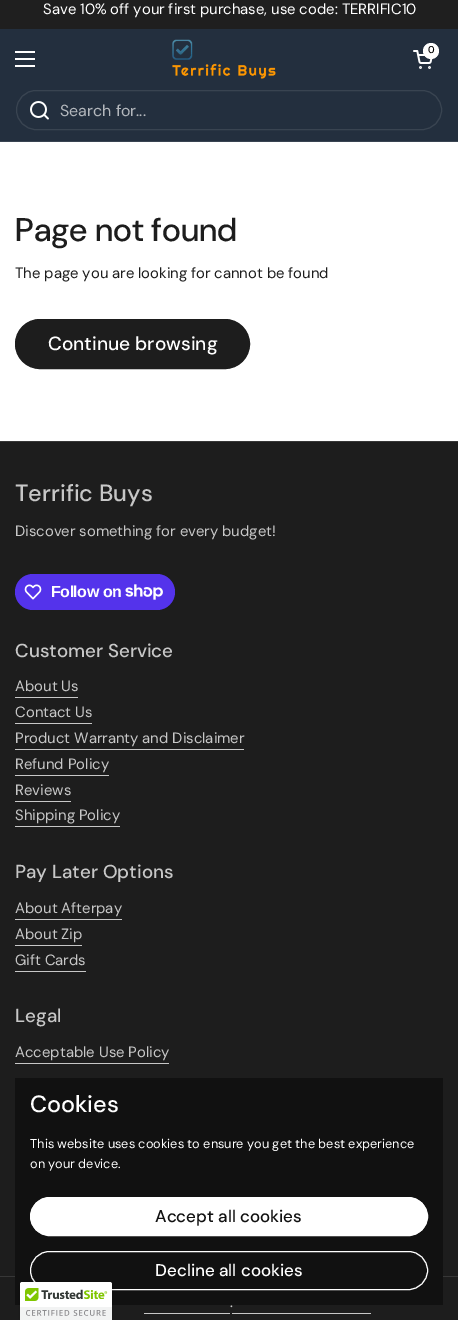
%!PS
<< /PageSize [458 1320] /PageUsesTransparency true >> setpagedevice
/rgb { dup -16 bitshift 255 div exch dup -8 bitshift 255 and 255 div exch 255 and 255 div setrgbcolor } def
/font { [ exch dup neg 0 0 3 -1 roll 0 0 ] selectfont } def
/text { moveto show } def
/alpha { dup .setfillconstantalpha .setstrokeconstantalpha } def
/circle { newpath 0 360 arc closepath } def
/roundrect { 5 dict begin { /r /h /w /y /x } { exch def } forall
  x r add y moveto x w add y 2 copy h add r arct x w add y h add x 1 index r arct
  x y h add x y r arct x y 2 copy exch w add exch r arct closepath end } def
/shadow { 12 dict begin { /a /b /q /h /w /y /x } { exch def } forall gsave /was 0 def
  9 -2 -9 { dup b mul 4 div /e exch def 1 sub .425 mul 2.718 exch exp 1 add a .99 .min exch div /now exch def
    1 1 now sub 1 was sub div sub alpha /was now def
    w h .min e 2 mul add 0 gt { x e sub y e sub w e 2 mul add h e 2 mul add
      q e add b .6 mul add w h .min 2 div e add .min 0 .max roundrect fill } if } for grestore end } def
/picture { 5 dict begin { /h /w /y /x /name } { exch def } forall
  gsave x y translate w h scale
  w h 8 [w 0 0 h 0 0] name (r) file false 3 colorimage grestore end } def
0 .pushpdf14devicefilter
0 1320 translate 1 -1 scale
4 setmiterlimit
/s1 { /DMSans-Regular 14.9 font 16#FFFFFF rgb } def
/s2 { /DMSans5-Medium 10 font 16#000000 rgb } def
/s3 { /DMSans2-Regular 16 font 16#B4B8BD rgb } def
/s4 { /DMSans-Medium 32.75 font 16#1D1D1D rgb } def
/s5 { /DMSans-Regular 14.9 font 16#1D1D1D rgb } def
/s6 { /DMSans2-Medium 19.1 font 16#FFFFFF rgb } def
/s7 { /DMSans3-Medium 23.5 font 16#C7C7C7 rgb } def
/s8 { /DMSans-Regular 14.9 font 16#C7C7C7 rgb } def
/s9 { /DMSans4-Medium 18.75 font 16#C7C7C7 rgb } def
/s10 { /DMSans3-Medium 23.5 font 16#FFFFFF rgb } def
/s11 { /DMSans3-Regular 12.75 font 16#FFFFFF rgb } def
/s12 { /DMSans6-Medium 17 font 16#111111 rgb } def
/s13 { /DMSans6-Medium 17 font 16#FFFFFF rgb } def
16#FFFFFF rgb
0 0 458 1320 rectfill
16#1F1F1F rgb
0 0 458 29 rectfill
s1
(Save 10% off your first purchase, use code: TERRIFIC10) 43 14 text
16#232F3E rgb
0 29 458 112 rectfill
(pic1.raw) 172 39 104 40 picture
(pic2.raw) 413 50 20 19 picture
16#FFFFFF rgb
431 51 8 circle fill
s2
(0) 428 53 text
16#FFFFFF rgb
15 51 20 2 rectfill
15 58 20 2 rectfill
15 65 20 2 rectfill
16#394451 rgb
0 141 458 1 rectfill
16.5 90.5 425 39 19.5 roundrect stroke
(pic3.raw) 30 101 19 19 picture
s3
(Search for...) 60 116 text
s4
(Page not found) 15 241 text
s5
(The page you are looking for cannot be found) 15 278 text
15.5 319.5 234 49 24.5 roundrect gsave fill grestore
stroke
s6
(Continue browsing) 48 350 text
16#1D1D1D rgb
0 442 458 878 rectfill
16#373737 rgb
0 441 458 1 rectfill
s7
(Terrific Buys) 15 501 text
s8
(Discover something for every budget!) 15 536 text
16#5433EB rgb
15 574 160 36 18 roundrect fill
(pic4.raw) 24 584 18 16 picture
/LiberationSans-Bold 16 font
16#FFFFFF rgb
51 597 moveto -0.5 0 (Follow on) ashow
(pic5.raw) 125 584 38 16 picture
s9
(Customer Service) 15 657 text
s8
(About Us) 15 691 text
15 697 63 1 rectfill
(Contact Us) 15 717 text
15 723 77 1 rectfill
(Product Warranty and Disclaimer) 15 743 text
15 749 229 1 rectfill
(Refund Policy) 15 769 text
15 775 94 1 rectfill
(Reviews) 15 795 text
15 801 56 1 rectfill
(Shipping Policy) 15 820 text
15 826 105 1 rectfill
s9
(Pay Later Options) 15 878 text
s8
(About Afterpay) 15 913 text
15 919 107 1 rectfill
(About Zip) 15 939 text
15 945 67 1 rectfill
(Gift Cards) 15 965 text
15 971 71 1 rectfill
s9
(Legal) 15 1022 text
s8
(Acceptable Use Policy) 15 1057 text
15 1063 154 1 rectfill
16#373737 rgb
0 1276 458 1 rectfill
s8
(.) 230 1307 text
144 1313 86 1 rectfill
232 1313 139 1 rectfill
16#111111 rgb
15 1078 428 227 rectfill
s10
(Cookies) 30 1112 text
s11
(This website uses cookies to ensure you get the best experience) 30 1148 text
(on your device.) 30 1168 text
30.5 1197.5 397 38 19 roundrect gsave fill grestore
stroke
s12
(Accept all cookies) 155 1222 text
16#FFFFFF rgb
30.5 1251.5 397 38 19 roundrect stroke
(Decline all cookies) 155 1276 text
16#000000 rgb
20 1282 92 38 2 2.5 0.2 shadow
(pic6.raw) 20 1282 92 38 picture
.poppdf14devicefilter showpage
